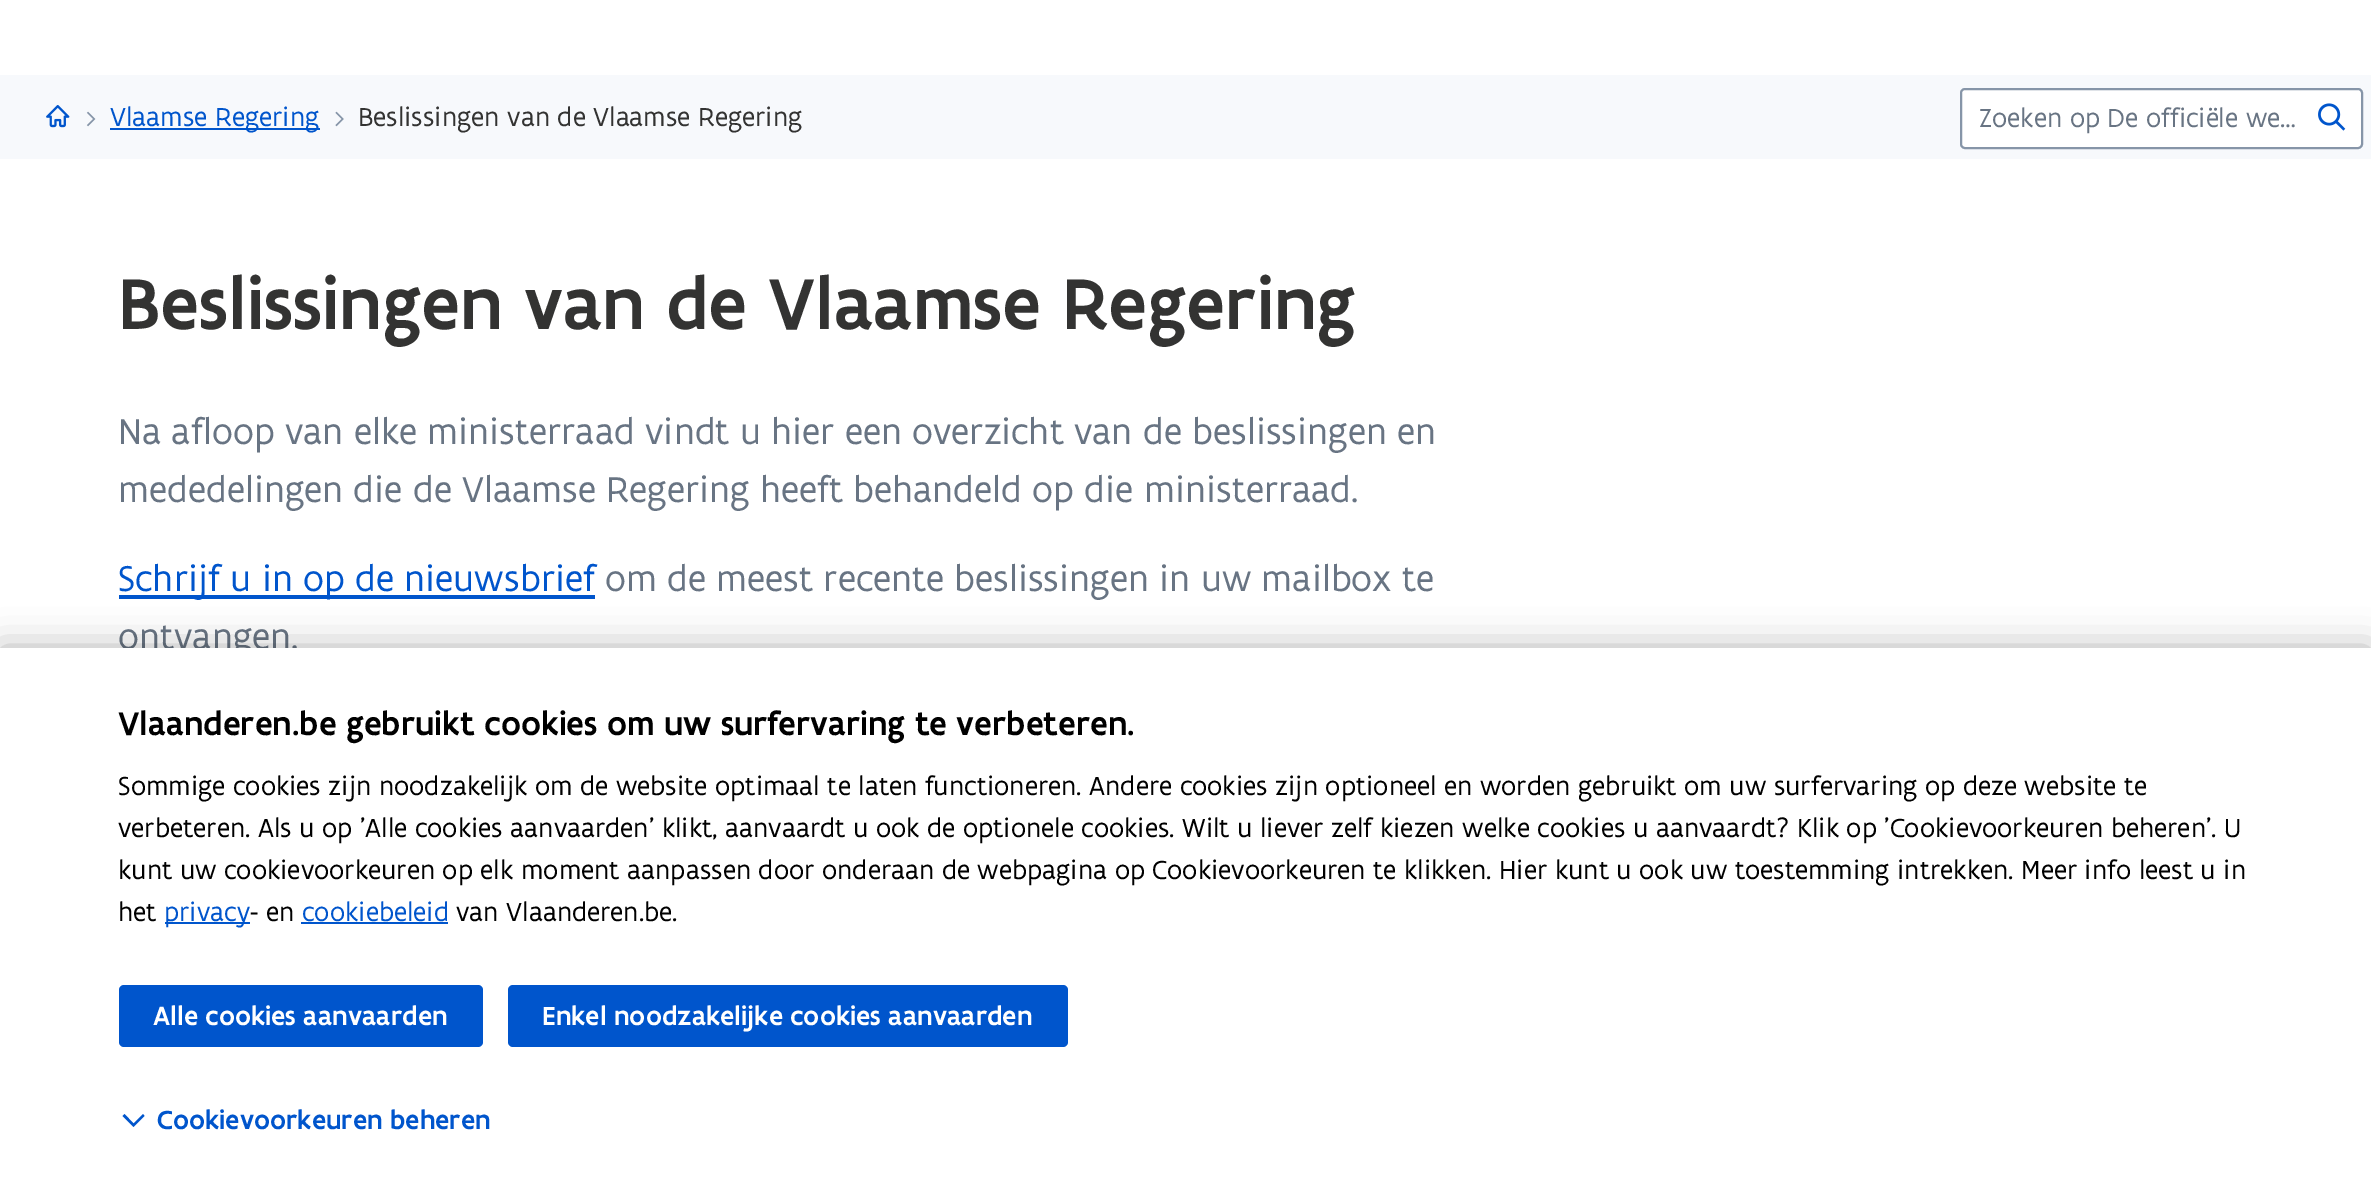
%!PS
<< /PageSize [2371 1192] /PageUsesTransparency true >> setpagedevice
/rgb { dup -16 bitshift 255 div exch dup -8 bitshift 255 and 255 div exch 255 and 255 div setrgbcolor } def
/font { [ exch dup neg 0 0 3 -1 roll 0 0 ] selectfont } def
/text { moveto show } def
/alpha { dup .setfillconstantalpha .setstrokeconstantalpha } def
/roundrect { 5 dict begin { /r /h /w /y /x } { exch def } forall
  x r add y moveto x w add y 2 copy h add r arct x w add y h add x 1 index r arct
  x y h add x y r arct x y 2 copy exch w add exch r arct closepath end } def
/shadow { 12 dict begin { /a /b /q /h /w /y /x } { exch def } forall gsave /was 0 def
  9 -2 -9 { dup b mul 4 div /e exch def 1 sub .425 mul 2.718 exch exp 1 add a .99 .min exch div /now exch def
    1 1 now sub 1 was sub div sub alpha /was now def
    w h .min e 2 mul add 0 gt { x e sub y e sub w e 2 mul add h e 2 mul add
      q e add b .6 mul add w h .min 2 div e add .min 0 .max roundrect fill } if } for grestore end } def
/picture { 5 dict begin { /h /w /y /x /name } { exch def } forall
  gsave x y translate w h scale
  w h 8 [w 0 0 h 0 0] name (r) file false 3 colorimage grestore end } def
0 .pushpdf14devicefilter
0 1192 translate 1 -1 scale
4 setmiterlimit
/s1 { /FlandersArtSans-Regular 28 font 16#0055CC rgb } def
/s2 { /FlandersArtSans-Regular 28 font 16#333332 rgb } def
/s3 { /FlandersArtSans-Regular 28 font 16#687483 rgb } def
/s4 { /FlandersArtSans-Medium 77 font 16#333332 rgb } def
/s5 { /FlandersArtSans-Regular 38.5 font 16#687483 rgb } def
/s6 { /FlandersArtSans-Regular 38.5 font 16#0055CC rgb } def
/s7 { /FlandersArtSans-Medium 35 font 16#000000 rgb } def
/s8 { /FlandersArtSans-Regular 28 font 16#000000 rgb } def
/s9 { /FlandersArtSans-Medium 28 font 16#FFFFFF rgb } def
/s10 { /FlandersArtSans-Medium 28 font 16#0055CC rgb } def
16#FFFFFF rgb
0 0 2371 1192 rectfill
16#F7F9FC rgb
0 75 2371 84 rectfill
(pic1.raw) 46 105 24 23 picture
(pic2.raw) 86 111 10 16 picture
16#0055CC rgb
110 128 210 2 rectfill
s1
(Vlaamse Regering) 110 126 text
(pic3.raw) 335 111 9 16 picture
s2
(Beslissingen van de Vlaamse Regering) 358 126 text
16#FFFFFF rgb
1961 89 401 59 4 roundrect gsave fill grestore
16#8695A8 rgb
2 setlinewidth
stroke
s3
(Zoeken op De officiële we…) 1979 127 text
(pic4.raw) 2318 103 28 28 picture
s4
(Beslissingen van de Vlaamse Regering) 118 329 text
s5
(Na afloop van elke ministerraad vindt u hier een overzicht van de beslissingen en) 118 444 text
(mededelingen die de Vlaamse Regering heeft behandeld op die ministerraad.) 118 502 text
16#0055CC rgb
119 595 476 4 rectfill
(Schrijf u in op de nieuwsbrief) 118 591 text
s5
(om de meest recente beslissingen in uw mailbox te) 605 591 text
(ontvangen.) 118 649 text
16#000000 rgb
0 648 2371 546 0 18.5 0.3 shadow
16#FFFFFF rgb
0 648 2371 544 rectfill
s7
(Vlaanderen.be gebruikt cookies om uw surfervaring te verbeteren.) 118 735 text
s8
(Sommige cookies zijn noodzakelijk om de website optimaal te laten functioneren. Andere cookies zijn optioneel en worden gebruikt om uw surfervaring op deze website te) 118 795 text
(verbeteren. Als u op 'Alle cookies aanvaarden' klikt, aanvaardt u ook de optionele cookies. Wilt u liever zelf kiezen welke cookies u aanvaardt? Klik op 'Cookievoorkeuren beheren'. U) 118 837 text
(kunt uw cookievoorkeuren op elk moment aanpassen door onderaan de webpagina op Cookievoorkeuren te klikken. Hier kunt u ook uw toestemming intrekken. Meer info leest u in) 118 879 text
(het) 118 921 text
16#0055CC rgb
165 922 85 2 rectfill
(privacy) 164 921 text
s8
(- en) 250 921 text
s1
(cookiebeleid) 302 921 text
301 922 147 2 rectfill
s8
(van Vlaanderen.be.) 456 921 text
16#0055CC rgb
119 985 364 62 5 roundrect fill
s9
(Alle cookies aanvaarden) 153 1025 text
16#0055CC rgb
508 985 560 62 5 roundrect fill
s9
(Enkel noodzakelijke cookies aanvaarden) 542 1025 text
16#0055CC rgb
122.5 1116 moveto 124.5 1114 lineto 133.5 1123.5 lineto 143 1114 lineto 144.5 1116 lineto 133.5 1127 lineto closepath fill
(Cookievoorkeuren beheren) 157 1129 text
.poppdf14devicefilter showpage
